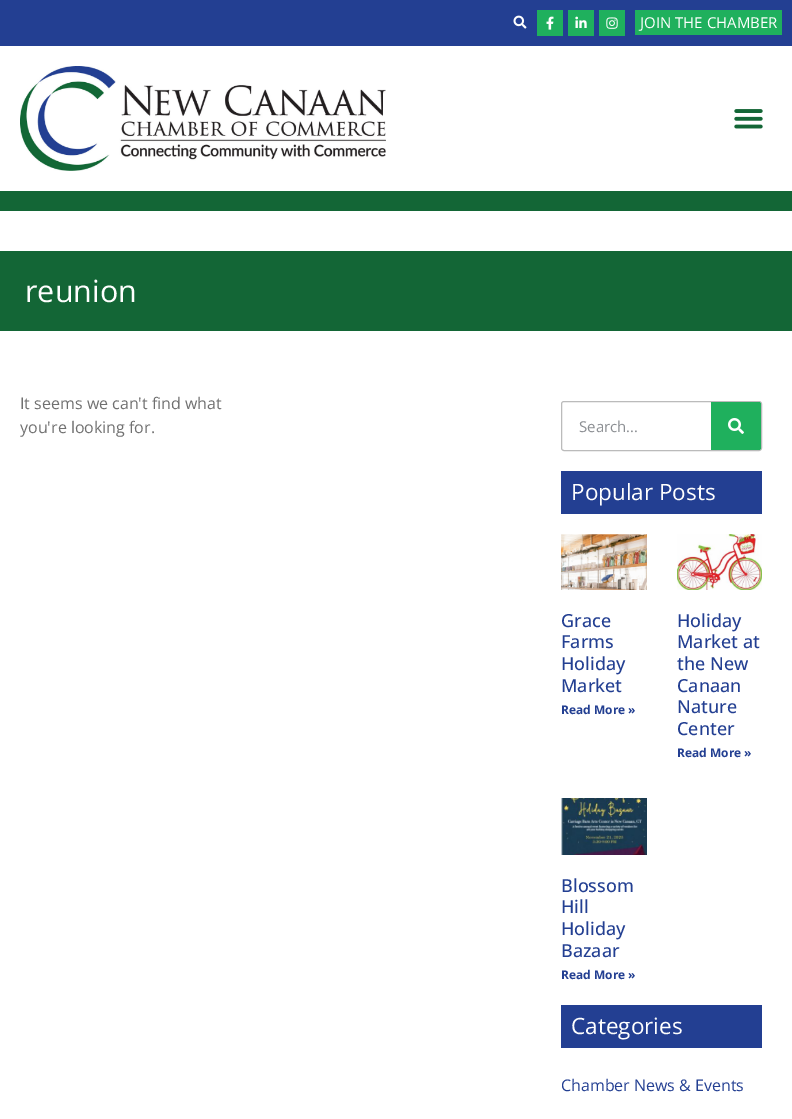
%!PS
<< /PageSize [792 1119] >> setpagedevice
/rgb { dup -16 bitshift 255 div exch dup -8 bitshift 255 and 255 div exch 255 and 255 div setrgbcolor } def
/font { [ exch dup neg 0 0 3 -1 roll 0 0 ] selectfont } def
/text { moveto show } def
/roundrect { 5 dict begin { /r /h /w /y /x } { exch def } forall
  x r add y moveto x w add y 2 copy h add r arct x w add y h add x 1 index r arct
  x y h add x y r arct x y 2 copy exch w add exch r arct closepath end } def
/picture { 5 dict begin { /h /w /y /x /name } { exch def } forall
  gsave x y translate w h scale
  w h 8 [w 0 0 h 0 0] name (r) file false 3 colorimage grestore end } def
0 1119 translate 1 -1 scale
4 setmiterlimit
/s1 { /OpenSans-Regular 15 font 16#FFFFFF rgb } def
/s2 { /OpenSans-Regular 30.5 font 16#FFFFFF rgb } def
/s3 { /OpenSans-Regular 16 font 16#707070 rgb } def
/s4 { /OpenSans-Regular 15 font 16#8C8F93 rgb } def
/s5 { /OpenSans-Regular 22.5 font 16#FFFFFF rgb } def
/s6 { /OpenSans-Medium 18 font 16#233F92 rgb } def
/s7 { /OpenSans-Bold 12 font 16#233F92 rgb } def
/s8 { /OpenSans-Regular 16 font 16#233F92 rgb } def
16#FFFFFF rgb
0 0 792 1119 rectfill
16#233F92 rgb
0 0 792 46 rectfill
(pic1.raw) 513 15 14 14 picture
16#1FB05D rgb
537 10 26 26 rectfill
(pic2.raw) 546 16 8 14 picture
568 10 26 26 rectfill
(pic3.raw) 575 16 12 12 picture
599 10 26 26 rectfill
(pic4.raw) 606 17 12 12 picture
635 10 147 25 rectfill
s1
(JOIN THE CHAMBER) 640 28 text
(pic5.raw) 20 66 366 105 picture
(pic6.raw) 734 109 29 20 picture
16#136636 rgb
0 191 792 20 rectfill
0 251 792 80 rectfill
s2
(reunion) 25 302 text
s3
(It seems we can't find what) 20 409 text
(you're looking for.) 20 433 text
16#BBBBBB rgb
561.5 401.5 200 49 2.5 roundrect stroke
s4
(Search...) 579 432 text
16#1FB05D rgb
711 402 moveto 759 402 lineto 760 402 761 403 761 404 curveto 761 448 lineto 761 449 760 450 759 450 curveto 711 450 lineto closepath fill
(pic7.raw) 728 418 16 16 picture
16#233F92 rgb
561 471 201 43 rectfill
s5
(Popular Posts) 571 500 text
(pic8.raw) 561 534 86 56 picture
s6
(Grace) 561 627 text
(Farms) 561 648 text
(Holiday) 561 670 text
(Market) 561 692 text
s7
(Read More ») 561 714 text
(pic9.raw) 677 534 85 56 picture
s6
(Holiday) 677 627 text
(Market at) 677 648 text
(the New) 677 670 text
(Canaan) 677 692 text
(Nature) 677 713 text
(Center) 677 735 text
s7
(Read More ») 677 757 text
(pic10.raw) 561 798 86 57 picture
s6
(Blossom) 561 892 text
(Hill) 561 913 text
(Holiday) 561 935 text
(Bazaar) 561 957 text
s7
(Read More ») 561 979 text
561 1005 201 43 rectfill
s5
(Categories) 571 1034 text
s8
(Chamber News & Events) 561 1091 text
showpage
